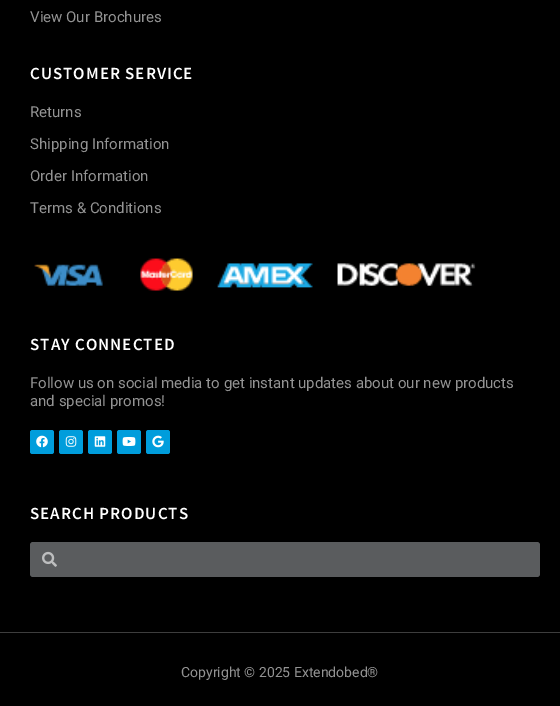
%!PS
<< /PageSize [560 706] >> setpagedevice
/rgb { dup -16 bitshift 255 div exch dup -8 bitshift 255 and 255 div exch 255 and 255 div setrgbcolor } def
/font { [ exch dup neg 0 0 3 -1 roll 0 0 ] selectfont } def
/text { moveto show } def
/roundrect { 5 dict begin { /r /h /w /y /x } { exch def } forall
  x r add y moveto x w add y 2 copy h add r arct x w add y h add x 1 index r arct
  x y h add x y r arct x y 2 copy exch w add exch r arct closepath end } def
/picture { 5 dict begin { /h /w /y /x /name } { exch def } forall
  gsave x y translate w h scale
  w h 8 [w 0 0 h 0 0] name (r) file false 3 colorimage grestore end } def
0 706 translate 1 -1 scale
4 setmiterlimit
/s1 { /Roboto-Regular 15 font 16#939393 rgb } def
/s2 { /Roboto-Regular 14 font 16#939393 rgb } def
16#000000 rgb
0 0 560 706 rectfill
s1
(View Our Brochures) 30 22 text
/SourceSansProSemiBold-SemiBold 17 font
16#FFFFFF rgb
30 79 moveto 1 0 (CUSTOMER SERVICE) ashow
s1
(Returns) 30 117 text
(Shipping Information) 30 149 text
(Order Information) 30 181 text
(Terms & Conditions) 30 213 text
(pic1.raw) 34 258 442 33 picture
/SourceSansProSemiBold-SemiBold 17 font
16#FFFFFF rgb
30 350 moveto 1 0 (STAY CONNECTED) ashow
s1
(Follow us on social media to get instant updates about our new products) 30 388 text
(and special promos!) 30 406 text
16#009DDC rgb
30 430 24 24 2.5 roundrect fill
(pic2.raw) 36 435 12 13 picture
59 430 24 24 2.5 roundrect fill
(pic3.raw) 65 436 12 11 picture
88 430 24 24 2.5 roundrect fill
(pic4.raw) 94 436 12 11 picture
117 430 24 24 2.5 roundrect fill
(pic5.raw) 122 437 14 9 picture
146 430 24 24 2.5 roundrect fill
(pic6.raw) 152 435 12 13 picture
/SourceSansProSemiBold-SemiBold 17 font
16#FFFFFF rgb
30 519 moveto 1 0 (SEARCH PRODUCTS) ashow
16#5A5C5E rgb
30 542 510 35 3 roundrect fill
(pic7.raw) 42 551 15 16 picture
16#3D3D3D rgb
0 632 560 1 rectfill
s2
(Copyright © 2025 Extendobed®) 181 677 text
showpage
